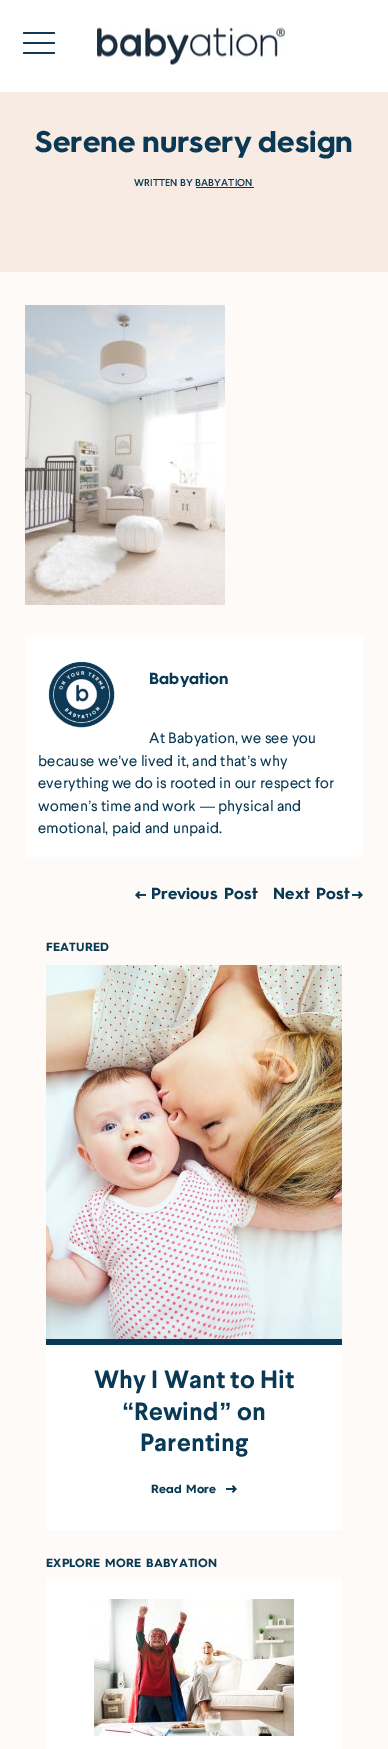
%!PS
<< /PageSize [388 1749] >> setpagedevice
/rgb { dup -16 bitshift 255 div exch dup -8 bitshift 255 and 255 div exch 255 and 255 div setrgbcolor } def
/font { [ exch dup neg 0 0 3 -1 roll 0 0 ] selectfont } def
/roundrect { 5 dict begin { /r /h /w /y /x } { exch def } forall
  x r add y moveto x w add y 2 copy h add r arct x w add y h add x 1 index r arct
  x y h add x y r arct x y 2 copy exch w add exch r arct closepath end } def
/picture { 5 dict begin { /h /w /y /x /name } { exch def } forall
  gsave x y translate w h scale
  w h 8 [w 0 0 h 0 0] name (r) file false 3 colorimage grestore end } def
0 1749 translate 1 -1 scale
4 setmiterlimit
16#FEFAF7 rgb
0 0 388 1749 rectfill
16#FFFFFF rgb
0 0 388 92 rectfill
16#133956 rgb
23 32 32 2 1 roundrect fill
23 42 32 2 1 roundrect fill
23 52 32 2 1 roundrect fill
(pic1.raw) 97 27 188 38 picture
16#F8EBE3 rgb
0 92 388 180 rectfill
/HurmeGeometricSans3-Bold 30 font
16#093954 rgb
35 152 moveto -6 0 32 0.15 0 (Serene nursery design) awidthshow
/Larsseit-Medium 10 font
134 186 moveto 0.15 0 (WRITTEN BY BABYATION) ashow
196 187 58 1 rectfill
(pic2.raw) 25 305 200 300 picture
16#FFFFFF rgb
25 635 338 222 rectfill
(pic3.raw) 48 661 67 67 picture
/HurmeGeometricSans3-Bold 16 font
16#093954 rgb
149 684 moveto 0.15 0 (Babyation) ashow
/Larsseit-Regular 15 font
149 743 moveto 0.15 0 (At Babyation, we see you) ashow
38 766 moveto 0.15 0 (because we ve lived it, and that s why) ashow
/LiberationSans-Regular 15 font
118 766 moveto 0.15 0 (’) ashow
247 766 moveto 0.15 0 (’) ashow
/Larsseit-Regular 15 font
38 788 moveto 0.15 0 (everything we do is rooted in our respect for) ashow
38 811 moveto 0.15 0 (women s time and work) ashow
/LiberationSans-Regular 15 font
88 811 moveto 0.15 0 (’) ashow
200 811 moveto 0.15 0 (—) ashow
/Larsseit-Regular 15 font
218 811 moveto 0.15 0 (physical and) ashow
38 833 moveto 0.15 0 (emotional, paid and unpaid.) ashow
(pic4.raw) 135 891 11 8 picture
/HurmeGeometricSans3-Bold 16 font
151 899 moveto 0.1 0 (Previous Post) ashow
273 899 moveto 0.1 0 (Next Post) ashow
(pic5.raw) 352 891 11 8 picture
/HurmeGeometricSans3-Bold 12 font
46 951 moveto 0.1 0 (FEATURED) ashow
(pic6.raw) 46 965 296 374 picture
16#FFFFFF rgb
46 1345 296 185 rectfill
16#093954 rgb
46 1339 296 6 rectfill
/Larsseit-Bold 25 font
94 1388 moveto 0.15 0 (Why I Want to Hit) ashow
/LiberationSans-Bold 25 font
122 1420 moveto 0.15 0 (“) ashow
/Larsseit-Bold 25 font
134 1420 moveto 0.15 0 (Rewind) ashow
/LiberationSans-Bold 25 font
219 1420 moveto 0.15 0 (”) ashow
/Larsseit-Bold 25 font
237 1420 moveto 0.15 0 (on) ashow
140 1451 moveto 0.15 0 (Parenting) ashow
/HurmeGeometricSans3-Bold 12 font
151 1493 moveto 0.1 0 (Read More) ashow
(pic7.raw) 226 1485 11 8 picture
46 1567 moveto 0.1 0 (EXPLORE MORE BABYATION) ashow
16#FFFFFF rgb
46 1579 296 170 rectfill
(pic8.raw) 94 1599 200 137 picture
showpage
